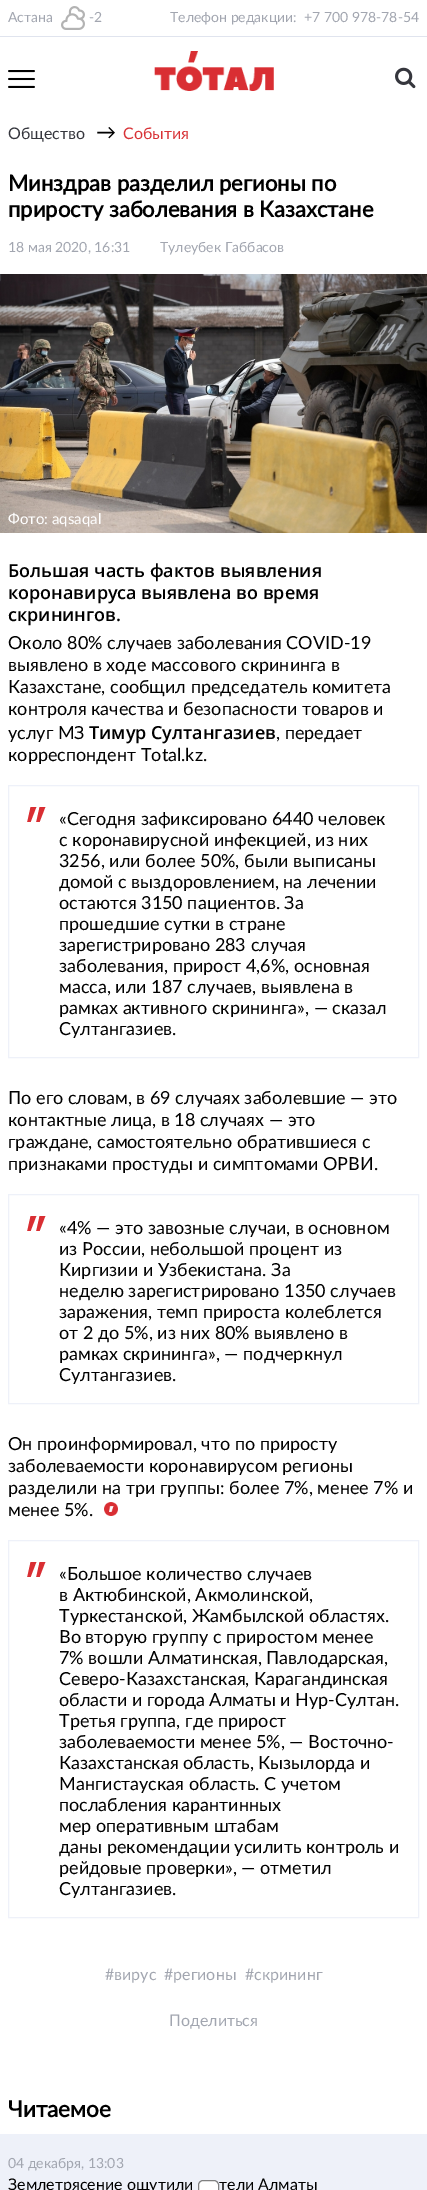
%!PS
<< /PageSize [427 2190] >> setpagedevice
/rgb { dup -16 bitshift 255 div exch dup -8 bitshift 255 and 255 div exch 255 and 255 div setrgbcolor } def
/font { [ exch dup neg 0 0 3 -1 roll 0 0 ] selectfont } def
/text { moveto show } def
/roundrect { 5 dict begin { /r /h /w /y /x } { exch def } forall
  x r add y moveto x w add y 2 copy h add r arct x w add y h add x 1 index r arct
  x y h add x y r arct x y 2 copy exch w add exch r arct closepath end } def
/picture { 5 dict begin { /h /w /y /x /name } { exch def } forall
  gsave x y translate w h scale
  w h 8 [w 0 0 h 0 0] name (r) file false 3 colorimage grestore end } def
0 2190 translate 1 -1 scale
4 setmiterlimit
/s1 { /Lato-Regular 14 font 16#A2A6B0 rgb } def
/s2 { /Lato-Regular 16 font 16#35363D rgb } def
/s3 { /Lato-Regular 20 font 16#000000 rgb } def
/s4 { /Lato-Regular 16 font 16#D83236 rgb } def
/s5 { /Lato-Bold 22 font 16#000000 rgb } def
/s6 { /Lato-Regular 15 font 16#FFFFFF rgb } def
/s7 { /OpenSans-SemiBold 18 font 16#000000 rgb } def
/s8 { /Lato-Regular 18 font 16#000000 rgb } def
/s9 { /Lato-Regular 16 font 16#A2A6B0 rgb } def
/s10 { /Lato-Bold 22.5 font 16#000000 rgb } def
/s11 { /Lato-Regular 16 font 16#000000 rgb } def
16#FFFFFF rgb
0 0 427 2190 rectfill
16#E0E4EE rgb
0 36 427 1 rectfill
s1
(Астана) 8 22 text
(pic1.raw) 61 6 24 24 picture
(-2) 89 22 text
(Телефон редакции:) 170 22 text
(+7 700 978-78-54) 304 22 text
(pic2.raw) 8 70 27 18 picture
(pic3.raw) 154 51 120 40 picture
(pic4.raw) 395 67 21 22 picture
s2
(Общество) 8 139 text
s3
(→) 96 139 text
s4
(События) 123 139 text
s5
(Минздрав разделил регионы по) 8 191 text
(приросту заболевания в Казахстане) 8 217 text
s1
(18 мая 2020, 16:31) 8 252 text
(Тулеубек Габбасов) 160 252 text
(pic5.raw) 0 274 427 259 picture
s6
(Фото: aqsaqal) 8 524 text
s7
(Большая часть фактов выявления) 8 577 text
(коронавируса выявлена во время) 8 599 text
(скринингов.) 8 621 text
s8
(Около 80% случаев заболевания COVID-19) 8 649 text
(выявлено в ходе массового скрининга в) 8 671 text
(Казахстане, сообщил председатель комитета) 8 693 text
(контроля качества и безопасности товаров и) 8 715 text
(услуг МЗ) 8 739 text
s7
(Тимур Султангазиев) 89 739 text
s8
(, передает) 276 739 text
(корреспондент Total.kz.) 8 761 text
16#EEF1F9 rgb
8.5 785.5 410 272 rectstroke
(pic6.raw) 27 807 19 15 picture
s8
(«Сегодня зафиксировано 6440 человек) 59 825 text
(с коронавирусной инфекцией, из них) 59 846 text
(3256, или более 50%, были выписаны) 59 867 text
(домой с выздоровлением, на лечении) 59 888 text
(остаются 3150 пациентов. За) 59 909 text
(прошедшие сутки в стране) 59 930 text
(зарегистрировано 283 случая) 59 951 text
(заболевания, прирост 4,6%, основная) 59 972 text
(масса, или 187 случаев, выявлена в) 59 993 text
(рамках активного скрининга», — сказал) 59 1014 text
(Султангазиев.) 59 1035 text
(По его словам, в 69 случаях заболевшие — это) 8 1104 text
(контактные лица, в 18 случаях — это) 8 1126 text
(граждане, самостоятельно обратившиеся с) 8 1148 text
(признаками простуды и симптомами ОРВИ.) 8 1170 text
16#EEF1F9 rgb
8.5 1194.5 410 209 rectstroke
(pic6.raw) 27 1216 19 15 picture
s8
(«4% — это завозные случаи, в основном) 59 1234 text
(из России, небольшой процент из) 59 1255 text
(Киргизии и Узбекистана. За) 59 1276 text
(неделю зарегистрировано 1350 случаев) 59 1297 text
(заражения, темп прироста колеблется) 59 1318 text
(от 2 до 5%, из них 80% выявлено в) 59 1339 text
(рамках скрининга», — подчеркнул) 59 1360 text
(Султангазиев.) 59 1381 text
(Он проинформировал, что по приросту) 8 1450 text
(заболеваемости коронавирусом регионы) 8 1472 text
(разделили на три группы: более 7%, менее 7% и) 8 1494 text
(менее 5%.) 8 1516 text
(pic7.raw) 104 1502 14 14 picture
16#EEF1F9 rgb
8.5 1540.5 410 377 rectstroke
(pic6.raw) 27 1562 19 15 picture
s8
(«Большое количество случаев) 59 1580 text
(в Актюбинской, Акмолинской,) 59 1601 text
(Туркестанской, Жамбылской областях.) 59 1622 text
(Во вторую группу с приростом менее) 59 1643 text
(7% вошли Алматинская, Павлодарская,) 59 1664 text
(Северо-Казахстанская, Карагандинская) 59 1685 text
(области и города Алматы и Нур-Султан.) 59 1706 text
(Третья группа, где прирост) 59 1727 text
(заболеваемости менее 5%, — Восточно-) 59 1748 text
(Казахстанская область, Кызылорда и) 59 1769 text
(Мангистауская область. С учетом) 59 1790 text
(послабления карантинных) 59 1811 text
(мер оперативным штабам) 59 1832 text
(даны рекомендации усилить контроль и) 59 1853 text
(рейдовые проверки», — отметил) 59 1874 text
(Султангазиев.) 59 1895 text
s9
(#вирус) 105 1980 text
(#регионы) 164 1980 text
(#скрининг) 245 1980 text
(Поделиться) 169 2026 text
16#EEF1F9 rgb
0 2134 427 56 rectfill
s10
(Читаемое) 8 2117 text
s1
(04 декабря, 13:03) 8 2168 text
s11
(Землетрясение ощутили) 8 2190 text
(тели Алматы) 219 2190 text
16#FFFFFF rgb
198.5 2180.5 20 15 4.5 roundrect gsave fill grestore
16#808080 rgb
stroke
showpage
